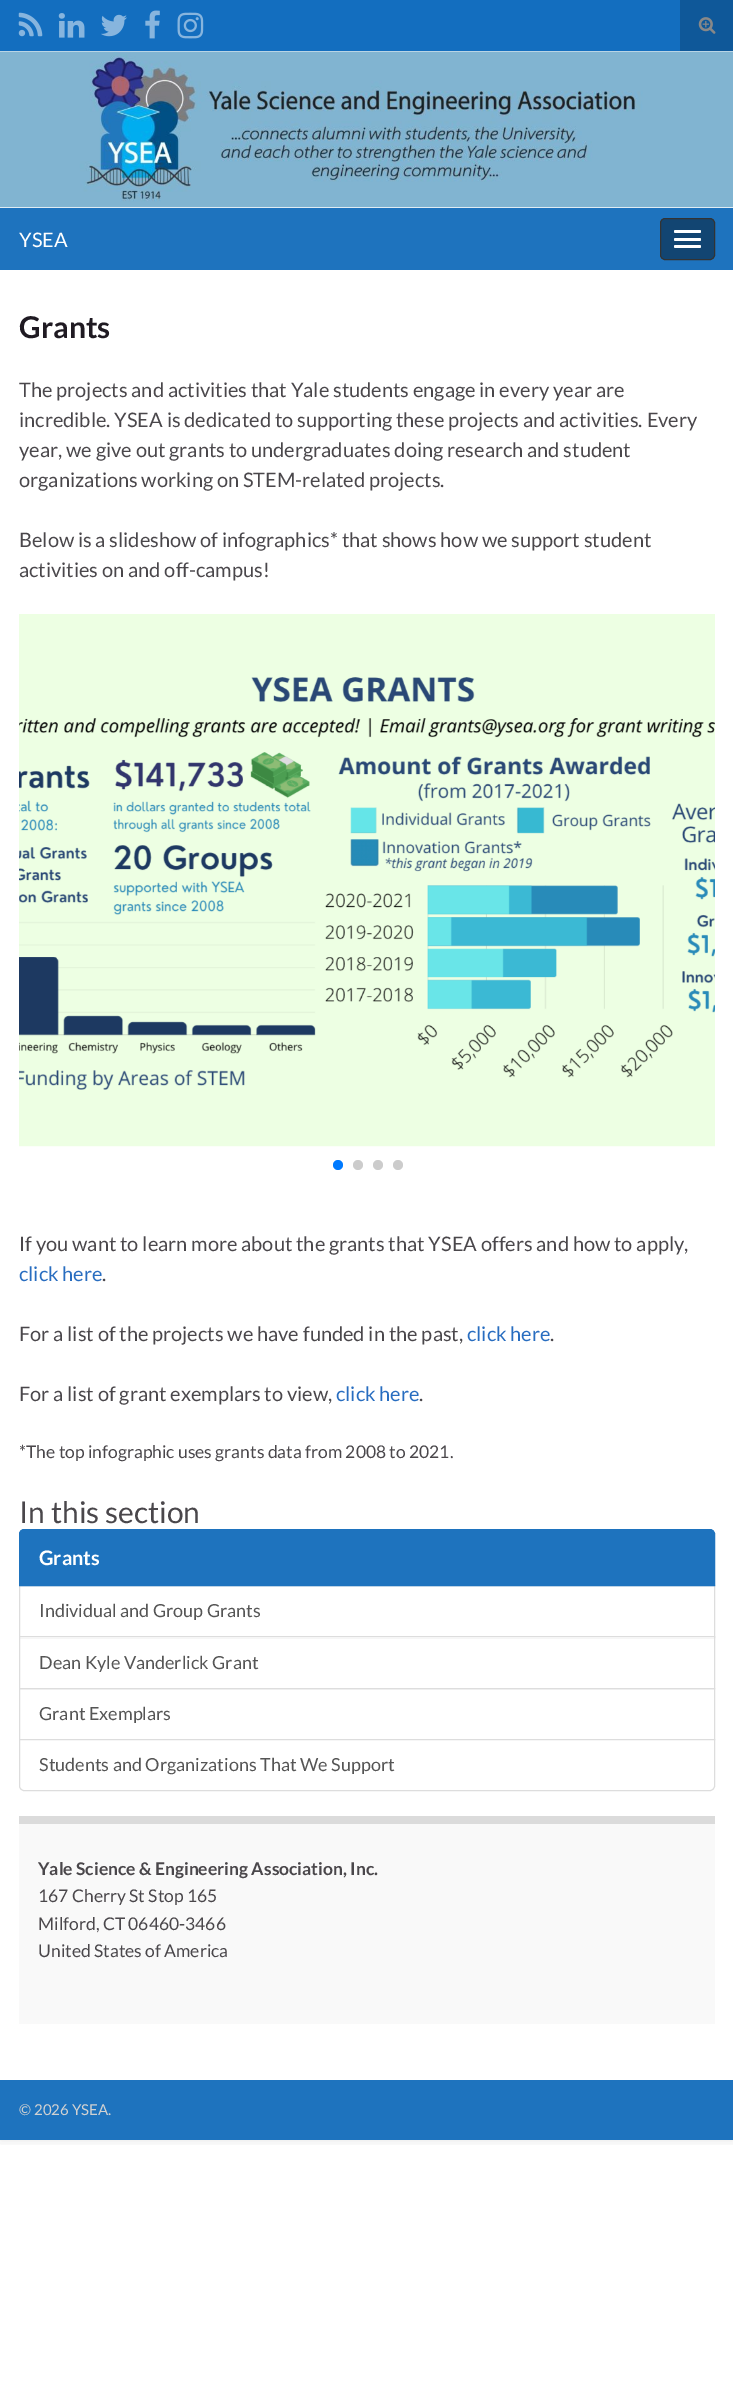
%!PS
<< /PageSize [733 2404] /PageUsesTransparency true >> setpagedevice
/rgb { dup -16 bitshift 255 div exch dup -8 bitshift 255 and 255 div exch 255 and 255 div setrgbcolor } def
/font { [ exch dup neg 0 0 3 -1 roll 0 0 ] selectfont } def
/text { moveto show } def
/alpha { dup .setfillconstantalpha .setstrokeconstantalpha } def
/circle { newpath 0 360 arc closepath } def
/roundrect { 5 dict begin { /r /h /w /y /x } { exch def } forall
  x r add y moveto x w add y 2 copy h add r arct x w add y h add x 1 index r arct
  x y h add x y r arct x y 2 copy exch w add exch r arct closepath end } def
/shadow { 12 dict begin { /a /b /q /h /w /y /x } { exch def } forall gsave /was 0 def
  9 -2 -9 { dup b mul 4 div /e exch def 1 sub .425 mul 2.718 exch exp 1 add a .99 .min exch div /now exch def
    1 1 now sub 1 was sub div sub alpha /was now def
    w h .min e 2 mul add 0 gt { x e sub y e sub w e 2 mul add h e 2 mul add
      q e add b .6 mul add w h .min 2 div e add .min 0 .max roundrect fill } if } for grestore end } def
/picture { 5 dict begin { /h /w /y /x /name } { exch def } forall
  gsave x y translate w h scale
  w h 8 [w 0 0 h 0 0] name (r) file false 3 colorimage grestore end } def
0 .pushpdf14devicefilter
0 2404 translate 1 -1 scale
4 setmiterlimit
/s1 { /Lato-Regular 20 font 16#FFFFFF rgb } def
/s2 { /Lato-Bold 30 font 16#1F1A22 rgb } def
/s3 { /Lato-Regular 20 font 16#4A474B rgb } def
/s4 { /Lato-Regular 20 font 16#286DC0 rgb } def
/s5 { /Lato-Regular 17.5 font 16#4A474B rgb } def
/s6 { /Lato-Regular 30 font 16#4A474B rgb } def
/s7 { /Lato-Bold 20 font 16#FFFFFF rgb } def
/s8 { /Lato-Regular 18 font 16#555555 rgb } def
/s9 { /Lato-Bold 17.5 font 16#4A474B rgb } def
/s10 { /Lato-Regular 15 font 16#D1D1D1 rgb } def
16#FFFFFF rgb
0 0 733 2404 rectfill
gsave
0 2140 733 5 rectclip
16#000000 rgb
0 0 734 2140 0 6 0.1 shadow
grestore
16#136EBF rgb
0 0 680 51 rectfill
(pic1.raw) 18 12 25 25 picture
(pic2.raw) 58 13 27 25 picture
(pic3.raw) 101 14 26 23 picture
(pic4.raw) 145 10 15 29 picture
(pic5.raw) 177 12 27 27 picture
16#0F5899 rgb
680 0 53 51 rectfill
(pic6.raw) 698 17 18 17 picture
(pic7.raw) 0 51 733 157 picture
16#1E73BE rgb
0 208 733 62 rectfill
s1
(YSEA) 19 247 text
16#124572 rgb
660.5 218.5 54 41 4.5 roundrect gsave fill grestore
16#333333 rgb
stroke
16#FFFFFF rgb
674 230 27 3 1.5 roundrect fill
674 238 27 3 1.5 roundrect fill
674 245 27 3 1.5 roundrect fill
s2
(Grants) 19 338 text
s3
(The projects and activities that Yale students engage in every year are) 19 397 text
(incredible. YSEA is dedicated to supporting these projects and activities. Every) 19 427 text
(year, we give out grants to undergraduates doing research and student) 19 457 text
(organizations working on STEM-related projects.) 19 487 text
(Below is a slideshow of infographics* that shows how we support student) 19 547 text
(activities on and off-campus!) 19 577 text
(pic8.raw) 19 614 696 533 picture
16#007AFF rgb
338 1165 5 circle fill
16#CCCCCC rgb
358 1165 5 circle fill
378 1165 5 circle fill
398 1165 5 circle fill
s3
(If you want to learn more about the grants that YSEA offers and how to apply,) 19 1251 text
s4
(click here) 19 1281 text
s3
(.) 102 1281 text
(For a list of the projects we have funded in the past,) 19 1341 text
s4
(click here) 467 1341 text
s3
(.) 550 1341 text
(For a list of grant exemplars to view,) 19 1401 text
s4
(click here) 336 1401 text
s3
(.) 419 1401 text
s5
(*The top infographic uses grants data from 2008 to 2021.) 19 1458 text
s6
(In this section) 19 1523 text
16#DDDDDD rgb
19.5 1585.5 695 52 rectstroke
16#1E73BE rgb
24 1529.5 moveto 710 1529.5 lineto 712.5 1529.5 714.5 1531.5 714.5 1534 curveto 714.5 1585.5 lineto 19.5 1585.5 lineto 19.5 1534 lineto 19.5 1531.5 21.5 1529.5 24 1529.5 curveto closepath gsave fill grestore
stroke
s7
(Grants) 39 1565 text
s8
(Individual and Group Grants) 39 1617 text
16#FFFFFF rgb
20 1637 694 1 rectfill
16#DDDDDD rgb
19.5 1636.5 695 52 rectstroke
s8
(Dean Kyle Vanderlick Grant) 39 1669 text
16#DDDDDD rgb
19.5 1688.5 695 51 rectstroke
s8
(Grant Exemplars) 39 1720 text
16#FFFFFF rgb
19.5 1739.5 moveto 714.5 1739.5 lineto 714.5 1786 lineto 714.5 1788.5 712.5 1790.5 710 1790.5 curveto 24 1790.5 lineto 21.5 1790.5 19.5 1788.5 19.5 1786 curveto closepath gsave fill grestore
16#DDDDDD rgb
stroke
s8
(Students and Organizations That We Support) 39 1771 text
16#F9F9F9 rgb
19 1824 696 200 rectfill
16#DBDBDB rgb
19 1816 696 8 rectfill
s9
(Yale Science & Engineering Association, Inc.) 38 1875 text
s5
(167 Cherry St Stop 165) 38 1902 text
(Milford, CT 06460-3466) 38 1930 text
(United States of America) 38 1957 text
16#1E73BE rgb
0 2080 733 60 rectfill
s10
(© 2026 YSEA.) 19 2115 text
.poppdf14devicefilter showpage
